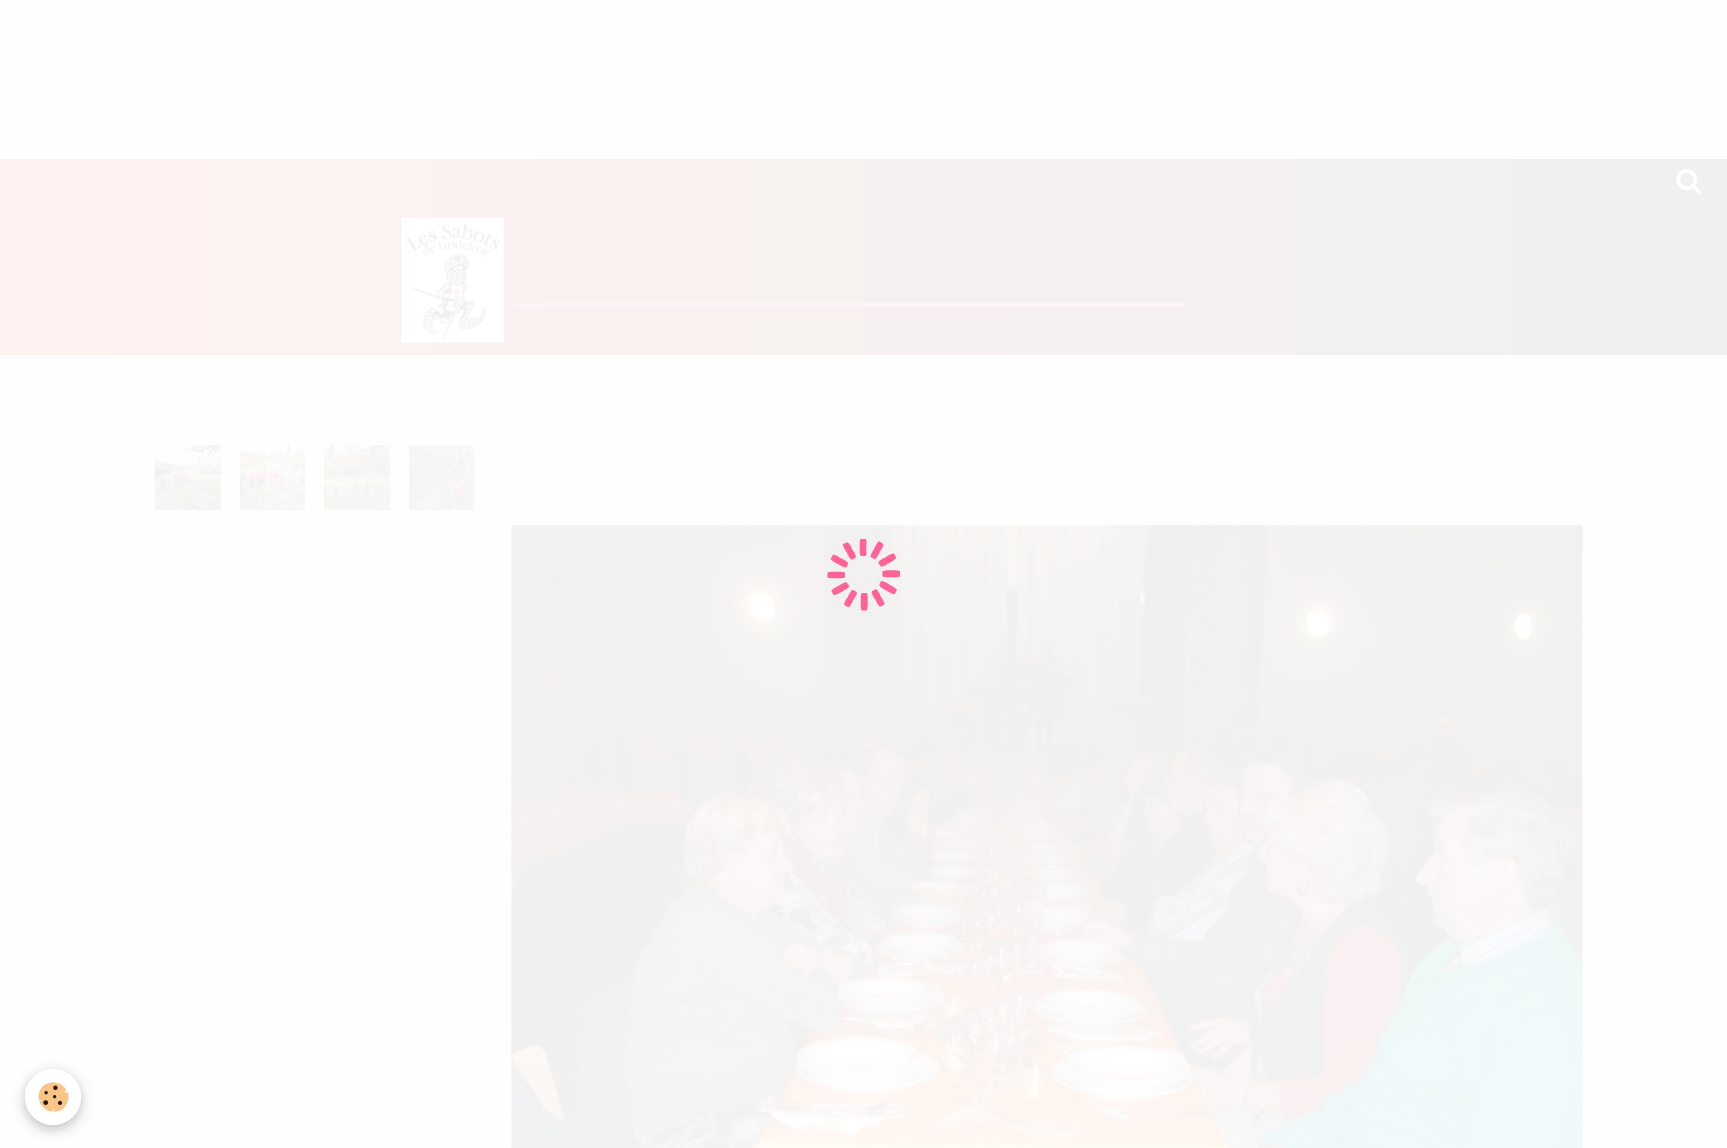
%!PS
<< /PageSize [1727 1148] /PageUsesTransparency true >> setpagedevice
/rgb { dup -16 bitshift 255 div exch dup -8 bitshift 255 and 255 div exch 255 and 255 div setrgbcolor } def
/alpha { dup .setfillconstantalpha .setstrokeconstantalpha } def
/circle { newpath 0 360 arc closepath } def
/roundrect { 5 dict begin { /r /h /w /y /x } { exch def } forall
  x r add y moveto x w add y 2 copy h add r arct x w add y h add x 1 index r arct
  x y h add x y r arct x y 2 copy exch w add exch r arct closepath end } def
/shadow { 12 dict begin { /a /b /q /h /w /y /x } { exch def } forall gsave /was 0 def
  9 -2 -9 { dup b mul 4 div /e exch def 1 sub .425 mul 2.718 exch exp 1 add a .99 .min exch div /now exch def
    1 1 now sub 1 was sub div sub alpha /was now def
    w h .min e 2 mul add 0 gt { x e sub y e sub w e 2 mul add h e 2 mul add
      q e add b .6 mul add w h .min 2 div e add .min 0 .max roundrect fill } if } for grestore end } def
/picture { 5 dict begin { /h /w /y /x /name } { exch def } forall
  gsave x y translate w h scale
  w h 8 [w 0 0 h 0 0] name (r) file false 3 colorimage grestore end } def
0 .pushpdf14devicefilter
0 1148 translate 1 -1 scale
4 setmiterlimit
16#FEFEFE rgb
0 0 1727 1148 rectfill
gsave 0 159 moveto 1727 159 lineto 1727 355 lineto 0 355 lineto closepath clip newpath
<< /ShadingType 2 /ColorSpace /DeviceRGB /Coords [0 257 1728 257] /Extend [true true] /Function << /FunctionType 2 /Domain [0 1] /C0 [1 0.953 0.945] /C1 [0.941 0.941 0.941] /N 1 >> >> shfill grestore
(pic1.raw) 1676 169 25 25 picture
(pic2.raw) 400 217 104 126 picture
16#FFF5F8 rgb
516 303 668 4 rectfill
(pic3.raw) 155 445 67 65 picture
(pic4.raw) 240 445 65 65 picture
(pic5.raw) 323 445 67 65 picture
(pic6.raw) 408 445 67 65 picture
(pic7.raw) 510 524 1073 624 picture
16#FE6298 rgb
831 558.5 moveto 833 555 lineto 834.5 554 840 558 841 558.5 curveto 842.5 559 848 562 848 563.5 curveto 846.5 567 lineto 845.5 568.5 838.5 564 838 564 curveto 837.5 563.5 830 560 831 558.5 curveto closepath fill
843.5 544 moveto 847 542.5 lineto 849 542.5 851.5 548 852 549.5 curveto 853 550.5 856.5 556 855.5 557.5 curveto 852 559.5 lineto 850.5 560 847 553 847 552.5 curveto 846.5 552 842 545 843.5 544 curveto closepath fill
861 539 moveto 865.5 539 lineto 867 539.5 866 546 866 547.5 curveto 866 549 867 555.5 865.5 556 curveto 861 556 lineto 859.5 556 860 548 860 547.5 curveto 860 547 859.5 539 861 539 curveto closepath 879.5 541.5 moveto 883 544 lineto 884 545.5 880.5 550.5 879.5 552 curveto 879 553 876.5 559 874.5 559 curveto 871 557 lineto 869.5 556 874 549.5 874.5 548.5 curveto 874.5 548 878 541 879.5 541.5 curveto closepath fill
0.94 alpha
16#FF5992 rgb
894 554 moveto 896 557.5 lineto 896 559.5 890 562 889 563 curveto 887.5 563.5 882.5 567 881 566.5 curveto 878.5 563 lineto 878 561 885 557.5 885.5 557.5 curveto 886 557 893 552.5 894 554 curveto closepath 900 572 moveto 900 576 lineto 899 577.5 892.5 577 891 577 curveto 890 577 883.5 577.5 882.5 576 curveto 882.5 572 lineto 882.5 570 890.5 570.5 891 570.5 curveto 892 570.5 900 570 900 572 curveto closepath 896.5 590.5 moveto 894.5 594 lineto 893 594.5 887.5 591 886.5 590.5 curveto 885 589.5 879.5 587 879.5 585 curveto 881 581.5 lineto 882 580 889 584.5 889.5 585 curveto 890 585 897.5 589 896.5 590.5 curveto closepath fill
827.5 577 moveto 827.5 573 lineto 828.5 571.5 835 572 836 572 curveto 837.5 572 844 571.5 845 573 curveto 845 577 lineto 845 578.5 837 578 836 578 curveto 835.5 578 827.5 578.5 827.5 577 curveto closepath fill
1 alpha
16#FE6298 rgb
884 604.5 moveto 880.5 606.5 lineto 878.5 606.5 876 600.5 875.5 599.5 curveto 874.5 598.5 871 593 872 591.5 curveto 875.5 589.5 lineto 877 588.5 880.5 595.5 880.5 596.5 curveto 881 597 885.5 603.5 884 604.5 curveto closepath 866 610.5 moveto 862 610.5 lineto 860.5 609.5 861 603 861 602 curveto 861 600.5 860.5 594 862 593 curveto 866 593 lineto 868 593 867.5 601 867.5 602 curveto 867.5 602.5 868 610.5 866 610.5 curveto closepath 848 607 moveto 844.5 605 lineto 843.5 603.5 847 598 848 597 curveto 848.5 596 851 590 853 590 curveto 856.5 592 lineto 858 593 853.5 599.5 853 600 curveto 853 600.5 849.5 608 848 607 curveto closepath fill
833.5 594.5 moveto 831.5 591 lineto 831.5 589.5 837.5 586.5 838.5 586 curveto 840 585.5 845 581.5 846.5 582.5 curveto 849 586 lineto 849.5 587.5 842.5 591 842 591.5 curveto 841.5 591.5 834.5 596 833.5 594.5 curveto closepath fill
16#000000 rgb
25 1073 56 56 28 6 0.24 shadow
16#FFFFFF rgb
53 1097 28 circle fill
(pic8.raw) 38 1082 31 30 picture
.poppdf14devicefilter showpage
